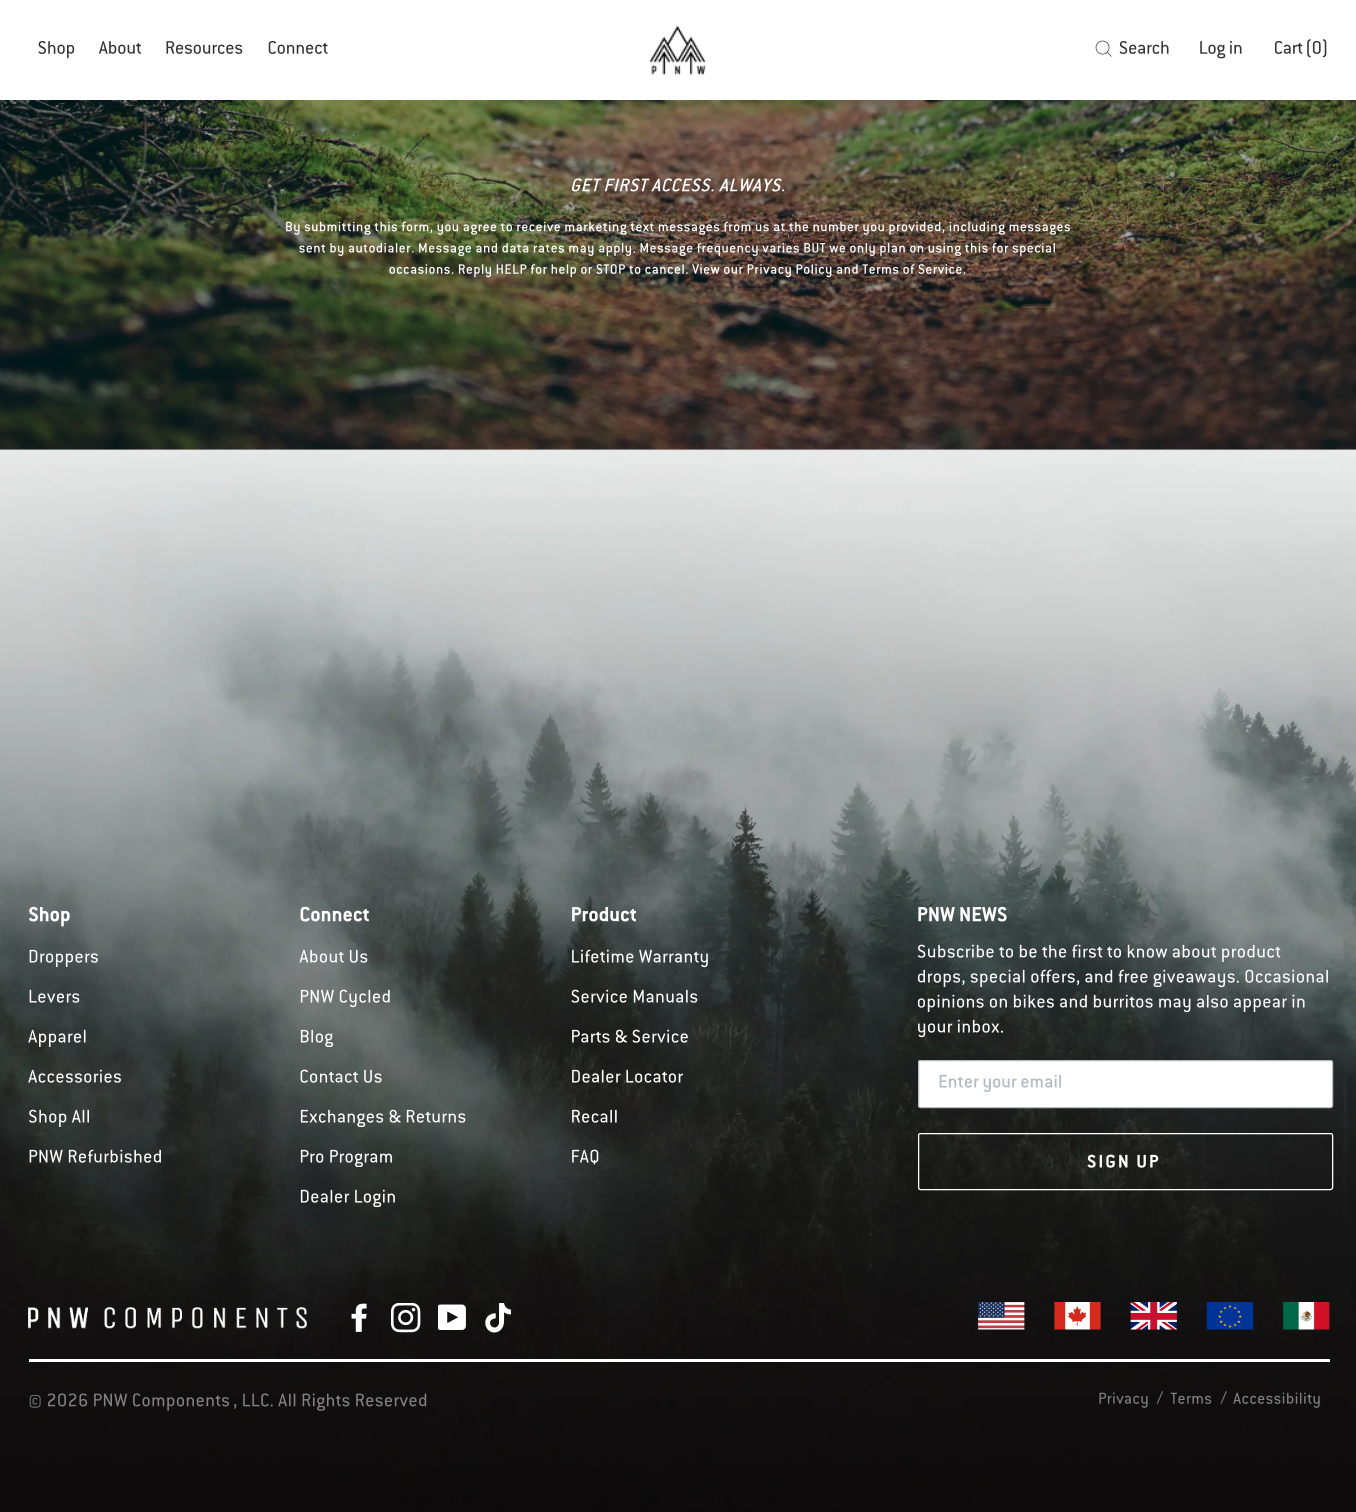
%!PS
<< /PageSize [1356 1512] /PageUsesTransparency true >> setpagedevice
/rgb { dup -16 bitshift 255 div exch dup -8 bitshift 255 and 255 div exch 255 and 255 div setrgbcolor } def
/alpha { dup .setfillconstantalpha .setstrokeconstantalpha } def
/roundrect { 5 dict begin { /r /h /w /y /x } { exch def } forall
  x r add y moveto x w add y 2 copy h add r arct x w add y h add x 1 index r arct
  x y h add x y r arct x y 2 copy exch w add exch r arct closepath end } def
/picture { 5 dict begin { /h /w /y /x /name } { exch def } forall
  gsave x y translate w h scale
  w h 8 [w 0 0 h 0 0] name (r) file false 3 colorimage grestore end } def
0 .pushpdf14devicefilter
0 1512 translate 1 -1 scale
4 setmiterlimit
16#FFFFFF rgb
0 0 1356 1512 rectfill
(pic1.raw) 38 40 37 19 picture
(pic2.raw) 99 41 42 13 picture
(pic3.raw) 166 41 77 13 picture
(pic4.raw) 268 40 60 14 picture
(pic5.raw) 649 26 57 50 picture
(pic6.raw) 1095 40 17 17 picture
(pic7.raw) 1119 40 50 14 picture
(pic8.raw) 1200 41 42 18 picture
(pic9.raw) 1274 40 29 14 picture
(pic10.raw) 1307 39 20 19 picture
(pic16.raw) 0 449 1356 1063 picture
(pic11.raw) 0 100 1356 350 picture
0.2 alpha
16#000000 rgb
0 100 1356 350 rectfill
1 alpha
(pic12.raw) 571 178 214 14 picture
(pic13.raw) 286 221 784 14 picture
(pic14.raw) 299 242 756 14 picture
(pic15.raw) 389 264 577 14 picture
(pic17.raw) 29 906 41 21 picture
(pic18.raw) 29 949 69 18 picture
(pic19.raw) 29 989 51 14 picture
(pic20.raw) 28 1029 58 18 picture
(pic21.raw) 28 1069 93 14 picture
(pic22.raw) 29 1109 60 18 picture
(pic23.raw) 29 1149 132 14 picture
(pic24.raw) 300 906 69 16 picture
(pic25.raw) 299 949 69 14 picture
(pic26.raw) 300 989 90 19 picture
(pic27.raw) 300 1029 34 18 picture
(pic28.raw) 300 1069 82 14 picture
(pic29.raw) 300 1109 166 18 picture
(pic30.raw) 300 1149 92 18 picture
(pic31.raw) 300 1189 95 18 picture
(pic32.raw) 572 907 64 15 picture
(pic33.raw) 572 949 136 19 picture
(pic34.raw) 571 989 127 14 picture
(pic35.raw) 572 1029 116 14 picture
(pic36.raw) 572 1069 111 14 picture
(pic37.raw) 572 1109 45 14 picture
(pic38.raw) 572 1149 27 16 picture
(pic39.raw) 918 906 89 16 picture
(pic40.raw) 917 944 364 18 picture
(pic41.raw) 917 969 411 19 picture
(pic42.raw) 917 994 388 19 picture
(pic43.raw) 918 1019 85 19 picture
16#FFFFFF rgb
918.5 1060.5 414 47 2 roundrect gsave fill grestore
16#B4BBC3 rgb
stroke
(pic44.raw) 939 1074 122 19 picture
16#FFFFFF rgb
918.5 1133.5 414 56 2 roundrect stroke
(pic45.raw) 1087 1154 72 14 picture
29 1359 1301 3 rectfill
(pic46.raw) 28 1307 279 22 picture
(pic47.raw) 351 1303 16 29 picture
(pic48.raw) 391 1303 30 30 picture
(pic49.raw) 438 1304 28 26 picture
(pic50.raw) 485 1303 26 30 picture
(pic51.raw) 978 1302 47 28 picture
(pic52.raw) 1054 1302 47 28 picture
(pic53.raw) 1130 1302 47 28 picture
(pic54.raw) 1206 1302 48 28 picture
(pic55.raw) 1283 1302 47 28 picture
(pic56.raw) 29 1393 200 18 picture
(pic57.raw) 234 1393 193 18 picture
(pic58.raw) 1099 1392 49 16 picture
(pic59.raw) 1156 1391 7 13 picture
(pic60.raw) 1170 1392 42 12 picture
(pic61.raw) 1220 1391 7 13 picture
(pic62.raw) 1233 1392 87 16 picture
.poppdf14devicefilter showpage
